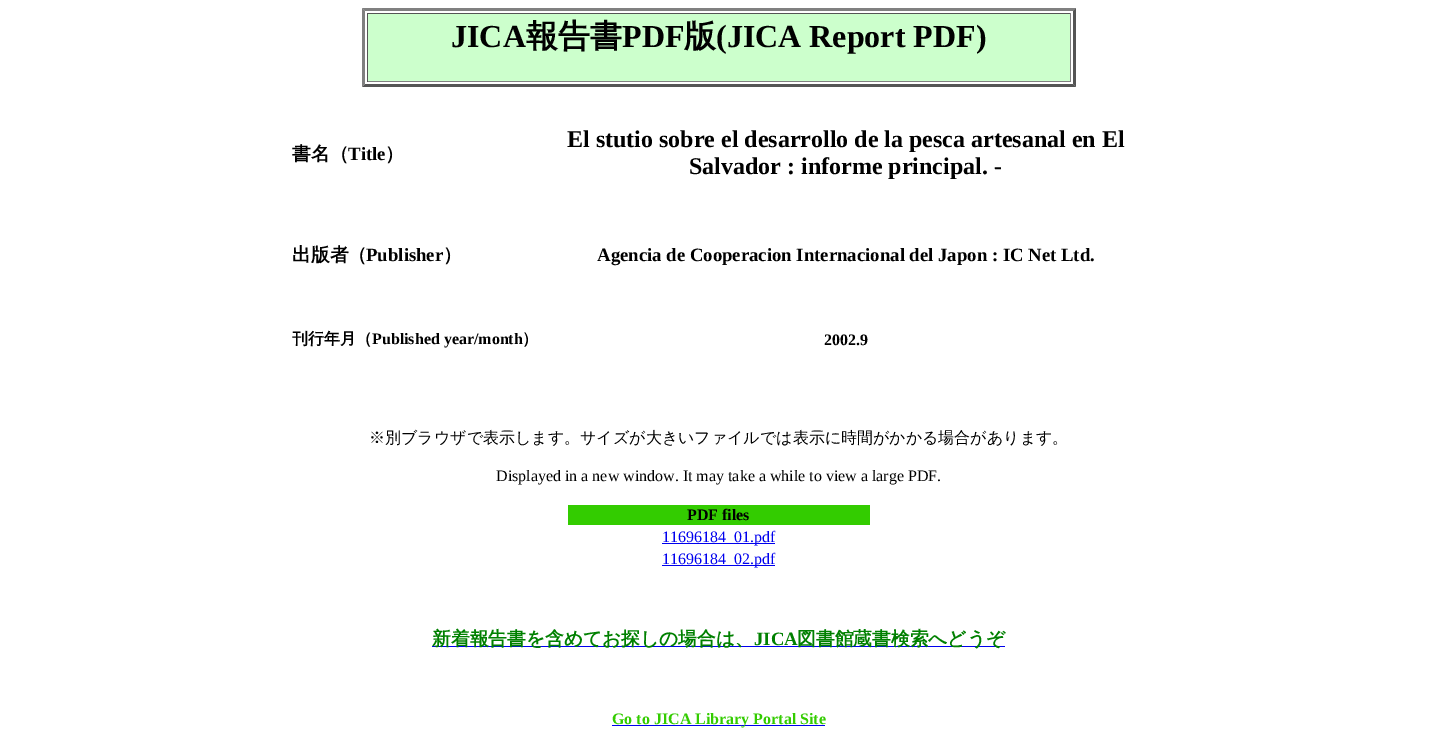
%!PS
<< /PageSize [1437 744] >> setpagedevice
/rgb { dup -16 bitshift 255 div exch dup -8 bitshift 255 and 255 div exch 255 and 255 div setrgbcolor } def
/font { [ exch dup neg 0 0 3 -1 roll 0 0 ] selectfont } def
/text { moveto show } def
0 744 translate 1 -1 scale
4 setmiterlimit
/s1 { /LiberationSerif-Bold 32 font 16#000000 rgb } def
/s2 { /WenQuanYiZenHei-Bold 32 font 16#000000 rgb } def
/s3 { /WenQuanYiZenHei-Bold 18.75 font 16#000000 rgb } def
/s4 { /LiberationSerif-Bold 18.75 font 16#000000 rgb } def
/s5 { /LiberationSerif-Bold 24 font 16#000000 rgb } def
/s6 { /WenQuanYiZenHei-Bold 16 font 16#000000 rgb } def
/s7 { /LiberationSerif-Bold 16 font 16#000000 rgb } def
/s8 { /WenQuanYiZenHei-Medium 16 font 16#000000 rgb } def
/s9 { /LiberationSerif-Regular 16 font 16#000000 rgb } def
/s10 { /LiberationSerif-Regular 16 font 16#0000EE rgb } def
/s11 { /WenQuanYiZenHei-Bold 18.75 font 16#008000 rgb } def
/s12 { /LiberationSerif-Bold 18.75 font 16#008000 rgb } def
/s13 { /LiberationSerif-Bold 16 font 16#33CC00 rgb } def
16#FFFFFF rgb
0 0 1437 744 rectfill
16#808080 rgb
362 8 moveto 1076 8 lineto 1073 11 lineto 365 11 lineto closepath fill
16#555555 rgb
1076 8 moveto 1076 87 lineto 1073 84 lineto 1073 11 lineto closepath fill
1076 87 moveto 362 87 lineto 365 84 lineto 1073 84 lineto closepath fill
16#808080 rgb
362 87 moveto 362 8 lineto 365 11 lineto 365 84 lineto closepath fill
16#CCFFCC rgb
368 14 702 67 rectfill
16#555555 rgb
367 13 704 1 rectfill
16#808080 rgb
1070 13 1 69 rectfill
367 81 704 1 rectfill
16#555555 rgb
367 13 1 69 rectfill
s1
(JICA) 451 47 text
s2
(報告書) 526 47 text
s1
(PDF) 622 47 text
s2
(版) 684 47 text
s1
(\(JICA Report PDF\)) 716 47 text
s3
(書名（) 292 160 text
s4
(Title) 348 160 text
s3
(）) 385 160 text
s5
(El stutio sobre el desarrollo de la pesca artesanal en El) 567 147 text
(Salvador : informe principal. -) 689 174 text
s3
(出版者（) 292 261 text
s4
(Publisher) 366 261 text
s3
(）) 443 261 text
s4
(Agencia de Cooperacion Internacional del Japon : IC Net Ltd.) 597 261 text
s6
(刊行年月（) 292 344 text
s7
(Published year/month) 372 344 text
s6
(）) 522 344 text
s7
(2002.9) 824 345 text
s8
(※別ブラウザで表示します。サイズが大きいファイルでは表示に時間がかかる場合があります。) 369 443 text
s9
(Displayed in a new window. It may take a while to view a large PDF.) 496 481 text
16#33CC00 rgb
568 505 302 20 rectfill
s7
(PDF files) 687 520 text
16#0000EE rgb
662 543 113 1 rectfill
s10
(11696184_01.pdf) 662 542 text
662 565 113 1 rectfill
(11696184_02.pdf) 662 564 text
432 646 573 1 rectfill
s11
(新着報告書を含めてお探しの場合は、) 432 645 text
s12
(JICA) 754 645 text
s11
(図書館蔵書検索へどうぞ) 797 645 text
16#0000EE rgb
612 725 213 1 rectfill
s13
(Go to JICA Library Portal Site) 612 724 text
showpage
